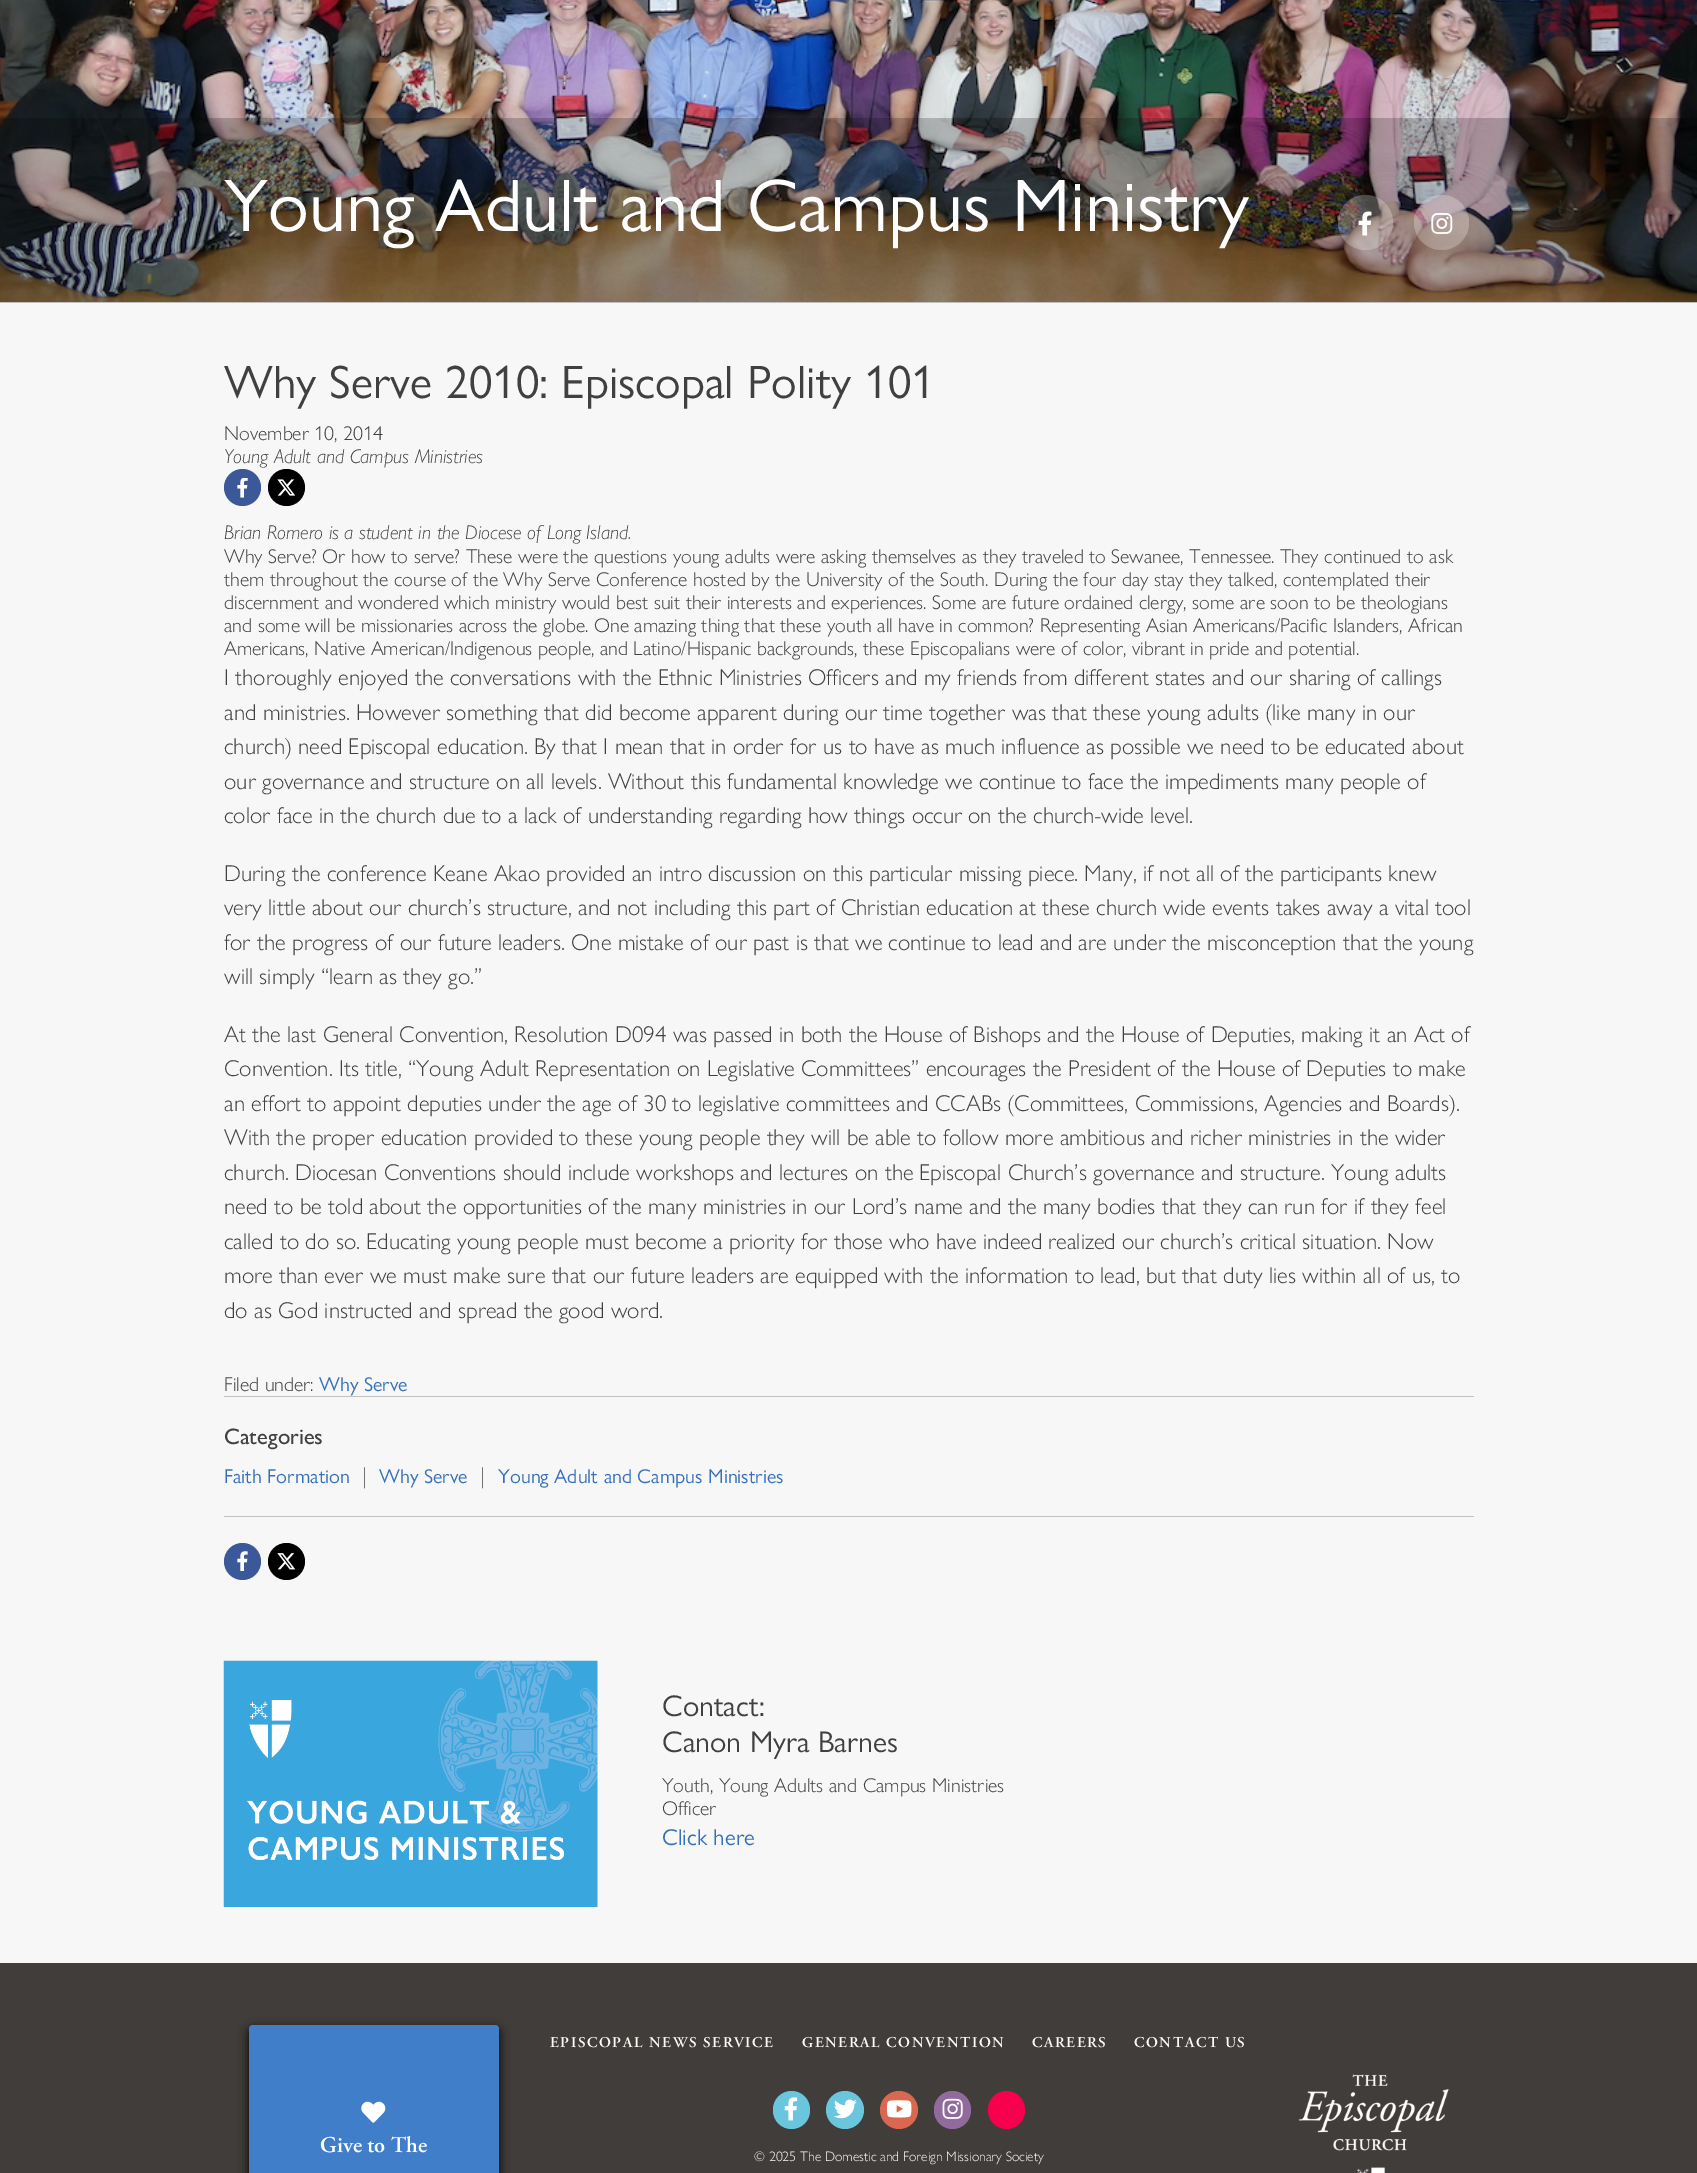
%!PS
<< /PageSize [1697 2173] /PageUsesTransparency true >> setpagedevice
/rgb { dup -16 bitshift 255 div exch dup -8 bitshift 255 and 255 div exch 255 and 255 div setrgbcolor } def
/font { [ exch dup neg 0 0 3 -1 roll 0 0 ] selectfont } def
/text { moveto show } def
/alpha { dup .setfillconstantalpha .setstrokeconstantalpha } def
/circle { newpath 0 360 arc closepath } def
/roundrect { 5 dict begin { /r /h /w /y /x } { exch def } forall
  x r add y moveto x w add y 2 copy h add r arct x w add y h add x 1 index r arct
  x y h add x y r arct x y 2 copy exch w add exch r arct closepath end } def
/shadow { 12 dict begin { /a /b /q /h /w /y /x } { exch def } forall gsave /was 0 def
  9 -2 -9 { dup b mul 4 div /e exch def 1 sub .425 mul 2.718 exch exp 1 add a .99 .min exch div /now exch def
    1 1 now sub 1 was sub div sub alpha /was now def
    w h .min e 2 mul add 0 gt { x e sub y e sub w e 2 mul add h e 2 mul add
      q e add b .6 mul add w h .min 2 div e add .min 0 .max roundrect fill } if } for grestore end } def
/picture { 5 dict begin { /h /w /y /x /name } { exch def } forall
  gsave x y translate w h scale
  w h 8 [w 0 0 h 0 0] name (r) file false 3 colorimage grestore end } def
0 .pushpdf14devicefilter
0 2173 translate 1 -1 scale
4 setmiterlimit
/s1 { /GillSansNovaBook-Regular 75 font 16#FFFFFF rgb } def
/s2 { /GillSansNovaBook-Regular 47 font 16#404040 rgb } def
/s3 { /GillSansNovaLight-Light 20 font 16#404040 rgb } def
/s4 { /GillSansNovaLight-LightItalic 20 font 16#404040 rgb } def
/s5 { /GillSansNovaLight-Light 23 font 16#404040 rgb } def
/s6 { /GillSansNovaBook-Regular 20 font 16#3571BB rgb } def
/s7 { /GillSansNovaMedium-Medium 22.5 font 16#404040 rgb } def
/s8 { /GillSansNovaBook-Regular 30 font 16#404040 rgb } def
/s9 { /GillSansNovaBook-Regular 23 font 16#3571BB rgb } def
/s10 { /AdobeGaramond-SemiBold 22.5 font 16#FFFFFF rgb } def
/s11 { /GillSansNovaLight-Light 13.75 font 16#FFFCF8 rgb } def
16#F7F7F7 rgb
0 0 1697 2173 rectfill
16#EFEFEF rgb
0 302 1697 1 rectfill
(pic1.raw) 0 0 1697 302 picture
0.2 alpha
16#000000 rgb
0 118 1697 185 rectfill
1 alpha
s1
(Young Adult and Campus Ministry) 224 231 text
0.25 alpha
1365.5 222.5 27.5 circle fill
1 alpha
(pic2.raw) 1358 211 14 25 picture
0.25 alpha
1441.5 222.5 27.5 circle fill
1 alpha
(pic3.raw) 1431 213 22 21 picture
s2
(Why Serve 2010: Episcopal Polity 101) 224 398 text
s3
(November 10, 2014) 224 440 text
s4
(Young Adult and Campus Ministries) 224 463 text
16#3B5998 rgb
242.5 487.5 18.5 circle fill
(pic4.raw) 237 478 11 20 picture
16#000000 rgb
286.5 487.5 18.5 circle fill
(pic5.raw) 277 479 19 17 picture
s4
(Brian Romero is a student in the Diocese of Long Island.) 224 539 text
s3
(Why Serve? Or how to serve? These were the questions young adults were asking themselves as they traveled to Sewanee, Tennessee. They continued to ask) 224 563 text
(them throughout the course of the Why Serve Conference hosted by the University of the South. During the four day stay they talked, contemplated their) 224 586 text
(discernment and wondered which ministry would best suit their interests and experiences. Some are future ordained clergy, some are soon to be theologians) 224 609 text
(and some will be missionaries across the globe. One amazing thing that these youth all have in common? Representing Asian Americans/Pacific Islanders, African) 224 632 text
(Americans, Native American/Indigenous people, and Latino/Hispanic backgrounds, these Episcopalians were of color, vibrant in pride and potential.) 224 655 text
s5
(I thoroughly enjoyed the conversations with the Ethnic Ministries) 224 685 text
(Officers and my friends from different states and our sharing of callings) 808 685 text
(and ministries. However something that did become apparent during our time together was that these young adults \(like many in our) 224 720 text
(church\) need Episcopal education. By that I mean that in order for us to) 224 754 text
(have as much influence as possible we need to be educated about) 874 754 text
(our governance and structure on all levels. Without this fundamental) 224 789 text
(knowledge we continue to face the impediments many people of) 843 789 text
(color face in the church due to a lack of understanding regarding how things occur) 224 823 text
(on the church-wide level.) 968 823 text
(During the conference Keane Akao provided an intro discussion on this) 224 881 text
(particular missing piece. Many, if not all of the participants knew) 869 881 text
(very little about our church’s structure, and not including this part of Christian education at these church wide events takes away a vital tool) 224 915 text
(for the progress of our future leaders. One mistake of our past is that) 224 950 text
(we continue to lead and are under the misconception that the young) 855 950 text
(will simply “learn as they go.”) 224 984 text
(At the last General Convention, Resolution D094 was passed in both the) 224 1042 text
(House of Bishops and the House of Deputies, making it an Act of) 884 1042 text
(Convention. Its title, “Young Adult Representation on Legislative) 224 1076 text
(Committees” encourages the President of the House of Deputies to make) 801 1076 text
(an effort to appoint deputies under the age of 30 to legislative committees and CCABs \(Committees, Commissions, Agencies and Boards\).) 224 1111 text
(With the proper education provided to these young people they will be) 224 1145 text
(able to follow more ambitious and richer ministries in the wider) 875 1145 text
(church. Diocesan Conventions should include workshops and lectures on the) 224 1180 text
(Episcopal Church’s governance and structure. Young adults) 919 1180 text
(need to be told about the opportunities of the many ministries in our Lord’s name) 224 1214 text
(and the many bodies that they can run for if they feel) 969 1214 text
(called to do so. Educating young people must become a priority for those who have indeed) 224 1249 text
(realized our church’s critical situation. Now) 1048 1249 text
(more than ever we must make sure that our future leaders are equipped with the information to) 224 1283 text
(lead, but that duty lies within all of us, to) 1100 1283 text
(do as God instructed and spread the good word.) 224 1318 text
s3
(Filed under:) 224 1391 text
s6
(Why Serve) 319 1391 text
16#C2C2C2 rgb
224 1396 1250 1 rectfill
224 1516 1250 1 rectfill
s7
(Categories) 224 1444 text
s6
(Faith Formation) 224 1483 text
s5
(|) 362 1483 text
s6
(Why Serve) 379 1483 text
s5
(|) 480 1483 text
s6
(Young Adult and Campus Ministries) 498 1483 text
16#3B5998 rgb
242.5 1561.5 18.5 circle fill
(pic6.raw) 237 1551 11 20 picture
16#000000 rgb
286.5 1561.5 18.5 circle fill
(pic7.raw) 277 1553 19 17 picture
(pic8.raw) 223 1660 375 247 picture
s8
(Contact:) 662 1716 text
(Canon Myra Barnes) 662 1752 text
s3
(Youth, Young Adults and Campus Ministries) 662 1792 text
(Officer) 662 1815 text
s9
(Click here) 662 1845 text
16#403D3B rgb
0 1963 1697 210 rectfill
16#000000 rgb
249 2029 250 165 4 5.5 1 shadow
16#407EC9 rgb
249 2025 250 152 4 roundrect fill
(pic9.raw) 361 2101 25 22 picture
s10
(Give to The) 320 2152 text
/AdobeGaramond-SemiBold 15 font
16#FFFCF8 rgb
550 2047 moveto 1.6 0 (EPISCOPAL NEWS SERVICE) ashow
802 2047 moveto 1.6 0 (GENERAL CONVENTION) ashow
1032 2047 moveto 1.6 0 (CAREERS) ashow
1134 2047 moveto 1.6 0 (CONTACT US) ashow
16#6AC6DD rgb
773 2091 37 38 18.5 roundrect fill
(pic10.raw) 784 2097 14 24 picture
845 2110 19 circle fill
(pic11.raw) 834 2099 23 20 picture
16#DA6750 rgb
899 2110 19 circle fill
(pic12.raw) 886 2100 26 18 picture
16#916B9D rgb
934 2091 37 38 18.5 roundrect fill
(pic13.raw) 942 2098 21 21 picture
16#F7004C rgb
988 2091 37 38 18.5 roundrect fill
s11
(© 2025 The Domestic and Foreign Missionary Society) 754 2161 text
(pic14.raw) 1298 2074 151 99 picture
.poppdf14devicefilter showpage
